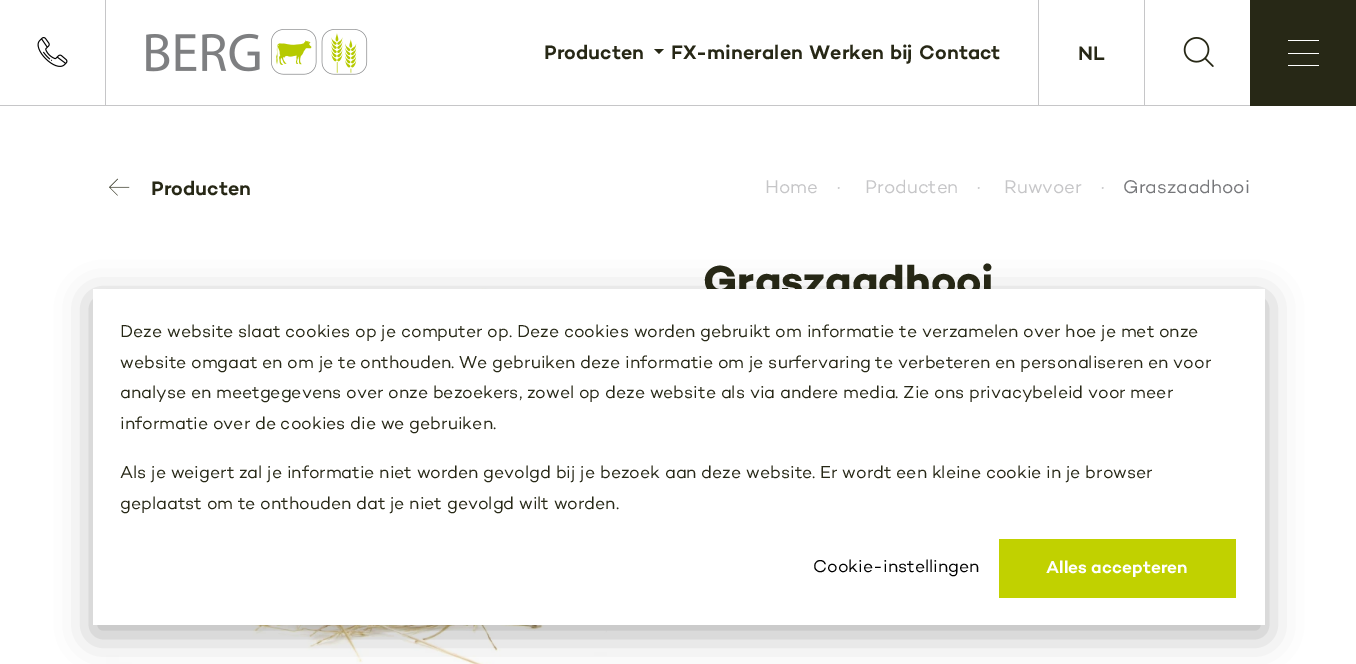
%!PS
<< /PageSize [1356 664] /PageUsesTransparency true >> setpagedevice
/rgb { dup -16 bitshift 255 div exch dup -8 bitshift 255 and 255 div exch 255 and 255 div setrgbcolor } def
/font { [ exch dup neg 0 0 3 -1 roll 0 0 ] selectfont } def
/text { moveto show } def
/alpha { dup .setfillconstantalpha .setstrokeconstantalpha } def
/roundrect { 5 dict begin { /r /h /w /y /x } { exch def } forall
  x r add y moveto x w add y 2 copy h add r arct x w add y h add x 1 index r arct
  x y h add x y r arct x y 2 copy exch w add exch r arct closepath end } def
/shadow { 12 dict begin { /a /b /q /h /w /y /x } { exch def } forall gsave /was 0 def
  9 -2 -9 { dup b mul 4 div /e exch def 1 sub .425 mul 2.718 exch exp 1 add a .99 .min exch div /now exch def
    1 1 now sub 1 was sub div sub alpha /was now def
    w h .min e 2 mul add 0 gt { x e sub y e sub w e 2 mul add h e 2 mul add
      q e add b .6 mul add w h .min 2 div e add .min 0 .max roundrect fill } if } for grestore end } def
/picture { 5 dict begin { /h /w /y /x /name } { exch def } forall
  gsave x y translate w h scale
  w h 8 [w 0 0 h 0 0] name (r) file false 3 colorimage grestore end } def
0 .pushpdf14devicefilter
0 664 translate 1 -1 scale
4 setmiterlimit
/s1 { /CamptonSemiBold-SemiBold 20 font 16#272816 rgb } def
/s2 { /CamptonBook-Regular 18.75 font 16#C6C6C8 rgb } def
/s3 { /CamptonBook-Regular 18.75 font 16#76777A rgb } def
/s4 { /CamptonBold-Bold 42.5 font 16#272816 rgb } def
/s5 { /CamptonBook-Regular 17.5 font 16#272816 rgb } def
/s6 { /CamptonBook-Regular 17.5 font 16#000000 rgb } def
/s7 { /CamptonSemiBold-SemiBold 17.5 font 16#FFFFFF rgb } def
16#FFFFFF rgb
0 0 1356 664 rectfill
16#C6C6C8 rgb
105 0 1 106 rectfill
0 105 1250 1 rectfill
(pic1.raw) 37 37 31 30 picture
16#272816 rgb
1250 0 106 106 rectfill
16#FFFFFF rgb
1288 53 31 1 rectfill
1288 40 31 1 rectfill
1288 65 31 1 rectfill
(pic2.raw) 146 29 222 46 picture
s1
(Producten) 544 59 text
654 49 moveto 664 49 lineto 659 54 lineto closepath fill
(FX-mineralen) 671 59 text
(Werken bij) 809 59 text
(Contact) 919 59 text
16#C6C6C8 rgb
1038 0 1 105 rectfill
s1
(NL) 1078 60 text
16#C6C6C8 rgb
1144 0 1 105 rectfill
(pic3.raw) 1183 37 31 30 picture
(pic4.raw) 109 178 21 18 picture
s1
(Producten) 151 195 text
s2
(Home) 765 193 text
(·) 837 193 text
(Producten) 865 193 text
(·) 977 193 text
(Ruwvoer) 1004 193 text
(·) 1101 193 text
s3
(Graszaadhooi) 1123 193 text
s4
(Graszaadhooi) 703 295 text
(pic5.raw) 106 288 548 376 picture
16#000000 rgb
93 299 1172 336 0 17.5 0.28 shadow
16#FFFFFF rgb
93 289 1172 336 rectfill
s5
(Deze website slaat cookies op je computer op. Deze cookies worden gebruikt om informatie te verzamelen over hoe je met onze) 120 337 text
(website omgaat en om je te onthouden. We gebruiken deze informatie om je surfervaring te verbeteren en personaliseren en voor) 120 368 text
(analyse en meetgegevens over onze bezoekers, zowel op deze website als via andere media. Zie ons privacybeleid voor meer) 120 398 text
(informatie over de cookies die we gebruiken.) 120 429 text
(Als je weigert zal je informatie niet worden gevolgd bij je bezoek aan deze website. Er wordt een kleine cookie in je browser) 120 478 text
(geplaatst om te onthouden dat je niet gevolgd wilt worden.) 120 509 text
s6
(Cookie-instellingen) 813 572 text
16#C1D100 rgb
999 539 237 59 rectfill
s7
(Alles accepteren) 1046 573 text
.poppdf14devicefilter showpage
